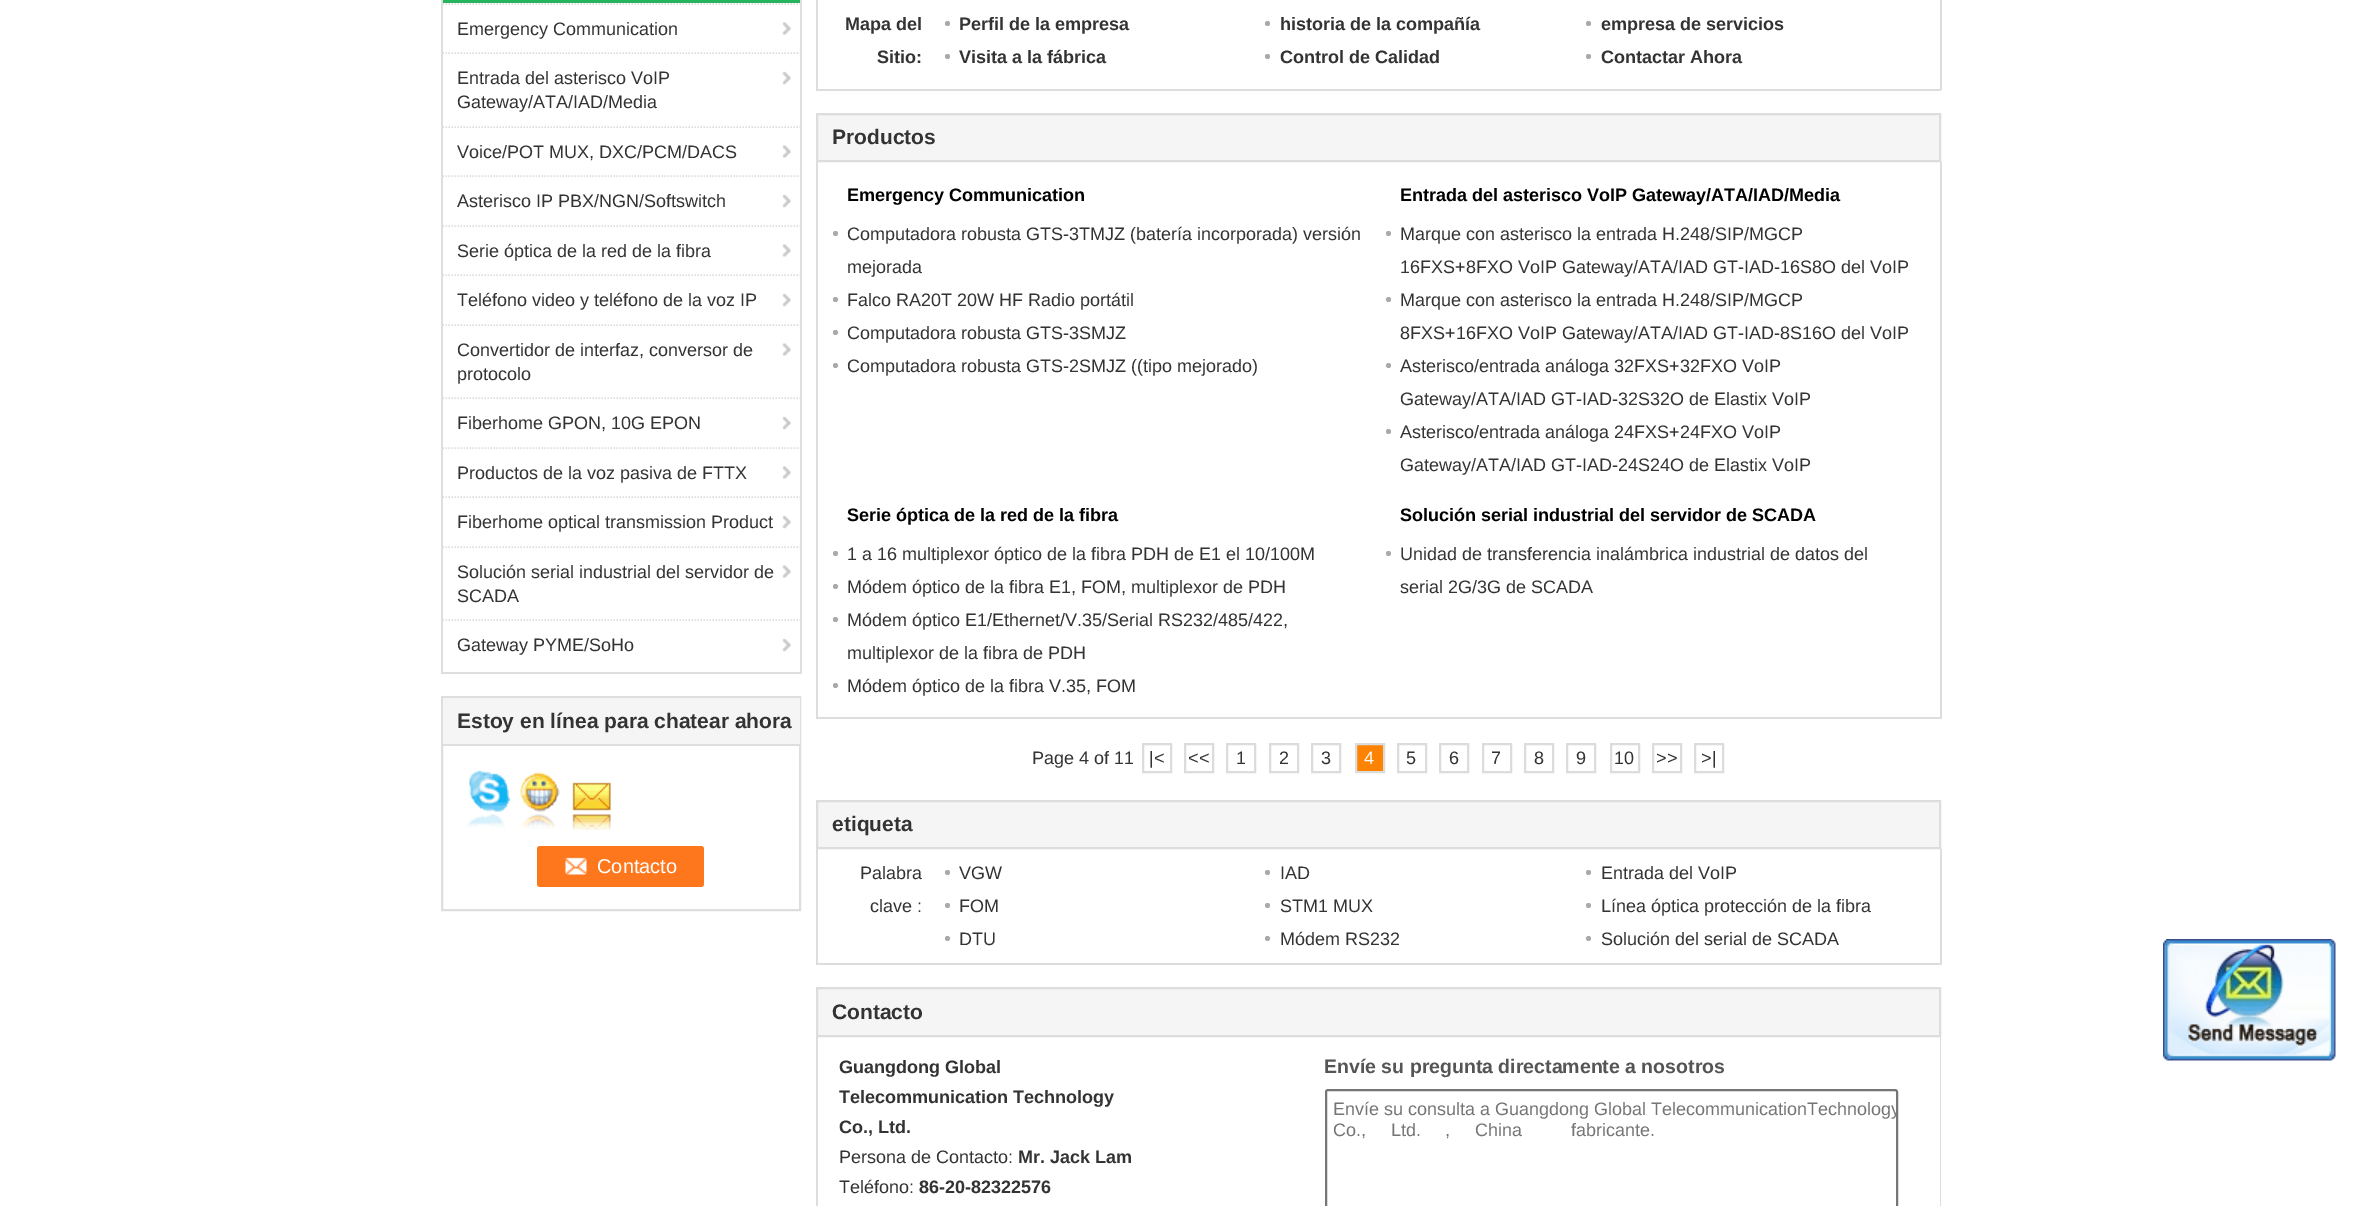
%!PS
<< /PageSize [2380 1206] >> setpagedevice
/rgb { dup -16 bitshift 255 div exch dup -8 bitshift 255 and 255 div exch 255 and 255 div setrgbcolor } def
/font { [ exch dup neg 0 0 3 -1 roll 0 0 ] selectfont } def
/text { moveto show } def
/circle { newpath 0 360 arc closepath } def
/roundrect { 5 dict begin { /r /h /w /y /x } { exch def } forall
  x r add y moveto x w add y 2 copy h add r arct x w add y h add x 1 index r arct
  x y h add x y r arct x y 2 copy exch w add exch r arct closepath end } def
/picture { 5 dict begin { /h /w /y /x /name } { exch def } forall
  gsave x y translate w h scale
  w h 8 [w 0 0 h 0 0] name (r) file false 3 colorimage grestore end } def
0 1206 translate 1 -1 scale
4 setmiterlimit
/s1 { /LiberationSans-Regular 18 font 16#333333 rgb } def
/s2 { /LiberationSans-Bold 21 font 16#333333 rgb } def
/s3 { /LiberationSans-Regular 20 font 16#FFFFFF rgb } def
/s4 { /LiberationSans-Bold 18 font 16#333333 rgb } def
/s5 { /LiberationSans-Bold 18 font 16#000000 rgb } def
/s6 { /LiberationSans-Regular 18 font 16#FFFFFF rgb } def
/s7 { /LiberationSans-Bold 19.5 font 16#555555 rgb } def
/s8 { /LiberationSans-Regular 18 font 16#757575 rgb } def
16#FFFFFF rgb
0 0 2380 1206 rectfill
16#DEDEDE rgb
800 0 2 674 rectfill
441 672 360 2 rectfill
441 0 2 674 rectfill
16#27B45F rgb
443 0 357 3 rectfill
(pic1.raw) 782 22 9 13 picture
gsave
443 0 357 672 rectclip
16#DEDEDE rgb
1.5 setlinewidth
[1.5 1.5] 0 setdash
442.5 4 moveto 802.5 4 lineto stroke
grestore
s1
(Emergency Communication) 457 35 text
(pic2.raw) 782 71 9 14 picture
gsave
443 0 357 672 rectclip
16#DEDEDE rgb
1.5 setlinewidth
[1.5 1.5] 0 setdash
442.5 53 moveto 802.5 53 lineto stroke
grestore
(Entrada del asterisco VoIP) 457 84 text
(Gateway/ATA/IAD/Media) 457 108 text
(pic1.raw) 782 145 9 13 picture
gsave
443 0 357 672 rectclip
16#DEDEDE rgb
1.5 setlinewidth
[1.5 1.5] 0 setdash
442.5 127 moveto 802.5 127 lineto stroke
grestore
(Voice/POT MUX, DXC/PCM/DACS) 457 158 text
(pic2.raw) 782 194 9 14 picture
gsave
443 0 357 672 rectclip
16#DEDEDE rgb
1.5 setlinewidth
[1.5 1.5] 0 setdash
442.5 176 moveto 802.5 176 lineto stroke
grestore
(Asterisco IP PBX/NGN/Softswitch) 457 207 text
(pic1.raw) 782 244 9 13 picture
gsave
443 0 357 672 rectclip
16#DEDEDE rgb
1.5 setlinewidth
[1.5 1.5] 0 setdash
442.5 226 moveto 802.5 226 lineto stroke
grestore
(Serie óptica de la red de la fibra) 457 257 text
(pic2.raw) 782 293 9 14 picture
gsave
443 0 357 672 rectclip
16#DEDEDE rgb
1.5 setlinewidth
[1.5 1.5] 0 setdash
442.5 275 moveto 802.5 275 lineto stroke
grestore
(Teléfono video y teléfono de la voz IP) 457 306 text
(pic1.raw) 782 343 9 13 picture
gsave
443 0 357 672 rectclip
16#DEDEDE rgb
1.5 setlinewidth
[1.5 1.5] 0 setdash
442.5 325 moveto 802.5 325 lineto stroke
grestore
(Convertidor de interfaz, conversor de) 457 356 text
(protocolo) 457 380 text
(pic2.raw) 782 416 9 14 picture
gsave
443 0 357 672 rectclip
16#DEDEDE rgb
1.5 setlinewidth
[1.5 1.5] 0 setdash
442.5 398 moveto 802.5 398 lineto stroke
grestore
(Fiberhome GPON, 10G EPON) 457 429 text
(pic1.raw) 782 466 9 13 picture
gsave
443 0 357 672 rectclip
16#DEDEDE rgb
1.5 setlinewidth
[1.5 1.5] 0 setdash
442.5 448 moveto 802.5 448 lineto stroke
grestore
(Productos de la voz pasiva de FTTX) 457 479 text
(pic2.raw) 782 515 9 14 picture
gsave
443 0 357 672 rectclip
16#DEDEDE rgb
1.5 setlinewidth
[1.5 1.5] 0 setdash
442.5 497 moveto 802.5 497 lineto stroke
grestore
(Fiberhome optical transmission Product) 457 528 text
(pic1.raw) 782 565 9 13 picture
gsave
443 0 357 672 rectclip
16#DEDEDE rgb
1.5 setlinewidth
[1.5 1.5] 0 setdash
442.5 547 moveto 802.5 547 lineto stroke
grestore
(Solución serial industrial del servidor de) 457 578 text
(SCADA) 457 602 text
(pic2.raw) 782 638 9 14 picture
gsave
443 0 357 672 rectclip
16#DEDEDE rgb
1.5 setlinewidth
[1.5 1.5] 0 setdash
442.5 620 moveto 802.5 620 lineto stroke
grestore
(Gateway PYME/SoHo) 457 651 text
16#DEDEDE rgb
2 setlinewidth
442 697 358 213 rectstroke
16#F5F5F5 rgb
443 698 357 46 rectfill
16#DEDEDE rgb
443 744 357 2 rectfill
s2
(Estoy en línea para chatear ahora) 457 728 text
(pic3.raw) 467 770 43 58 picture
(pic4.raw) 520 772 40 57 picture
(pic5.raw) 572 782 39 49 picture
16#FF771C rgb
537 846 167 41 3 roundrect fill
(pic6.raw) 565 857 22 18 picture
s3
(Contacto) 597 873 text
16#DDDDDD rgb
1940 0 2 90 rectfill
816 89 1125 2 rectfill
816 0 2 90 rectfill
s4
(Mapa del) 845 30 text
(Sitio:) 877 63 text
16#AAAAAA rgb
947.5 23.5 2.5 circle fill
s4
(Perfil de la empresa) 959 30 text
16#AAAAAA rgb
1267.5 23.5 2.5 circle fill
s4
(historia de la compañía) 1280 30 text
16#AAAAAA rgb
1588.5 23.5 2.5 circle fill
s4
(empresa de servicios) 1601 30 text
16#AAAAAA rgb
947.5 56.5 2.5 circle fill
s4
(Visita a la fábrica) 959 63 text
16#AAAAAA rgb
1267.5 56.5 2.5 circle fill
s4
(Control de Calidad) 1280 63 text
16#AAAAAA rgb
1588.5 56.5 2.5 circle fill
s4
(Contactar Ahora) 1601 63 text
16#F5F5F5 rgb
817 114 moveto 1940 114 lineto 1940 161 lineto 817 161 lineto closepath gsave fill grestore
16#DDDDDD rgb
stroke
s2
(Productos) 832 144 text
16#DDDDDD rgb
1940 162 2 557 rectfill
816 717 1125 2 rectfill
816 162 2 557 rectfill
s5
(Emergency Communication) 847 201 text
16#AAAAAA rgb
835.5 233.5 2.5 circle fill
s1
(Computadora robusta GTS-3TMJZ \(batería incorporada\) versión) 847 240 text
(mejorada) 847 273 text
16#AAAAAA rgb
835.5 299.5 2.5 circle fill
s1
(Falco RA20T 20W HF Radio portátil) 847 306 text
16#AAAAAA rgb
835.5 332.5 2.5 circle fill
s1
(Computadora robusta GTS-3SMJZ) 847 339 text
16#AAAAAA rgb
835.5 365.5 2.5 circle fill
s1
(Computadora robusta GTS-2SMJZ \(\(tipo mejorado\)) 847 372 text
s5
(Entrada del asterisco VoIP Gateway/ATA/IAD/Media) 1400 201 text
16#AAAAAA rgb
1388.5 233.5 2.5 circle fill
s1
(Marque con asterisco la entrada H.248/SIP/MGCP) 1400 240 text
(16FXS+8FXO VoIP Gateway/ATA/IAD GT-IAD-16S8O del VoIP) 1400 273 text
16#AAAAAA rgb
1388.5 299.5 2.5 circle fill
s1
(Marque con asterisco la entrada H.248/SIP/MGCP) 1400 306 text
(8FXS+16FXO VoIP Gateway/ATA/IAD GT-IAD-8S16O del VoIP) 1400 339 text
16#AAAAAA rgb
1388.5 365.5 2.5 circle fill
s1
(Asterisco/entrada análoga 32FXS+32FXO VoIP) 1400 372 text
(Gateway/ATA/IAD GT-IAD-32S32O de Elastix VoIP) 1400 405 text
16#AAAAAA rgb
1388.5 431.5 2.5 circle fill
s1
(Asterisco/entrada análoga 24FXS+24FXO VoIP) 1400 438 text
(Gateway/ATA/IAD GT-IAD-24S24O de Elastix VoIP) 1400 471 text
s5
(Serie óptica de la red de la fibra) 847 521 text
16#AAAAAA rgb
835.5 553.5 2.5 circle fill
s1
(1 a 16 multiplexor óptico de la fibra PDH de E1 el 10/100M) 847 560 text
16#AAAAAA rgb
835.5 586.5 2.5 circle fill
s1
(Módem óptico de la fibra E1, FOM, multiplexor de PDH) 847 593 text
16#AAAAAA rgb
835.5 619.5 2.5 circle fill
s1
(Módem óptico E1/Ethernet/V.35/Serial RS232/485/422,) 847 626 text
(multiplexor de la fibra de PDH) 847 659 text
16#AAAAAA rgb
835.5 685.5 2.5 circle fill
s1
(Módem óptico de la fibra V.35, FOM) 847 692 text
s5
(Solución serial industrial del servidor de SCADA) 1400 521 text
16#AAAAAA rgb
1388.5 553.5 2.5 circle fill
s1
(Unidad de transferencia inalámbrica industrial de datos del) 1400 560 text
(serial 2G/3G de SCADA) 1400 593 text
(Page 4 of 11) 1032 764 text
16#DCDCDC rgb
1143 744 28 28 rectstroke
s1
(|<) 1149 764 text
16#DCDCDC rgb
1185 744 28 28 rectstroke
s1
(<<) 1188 764 text
16#DCDCDC rgb
1227 744 28 28 rectstroke
s1
(1) 1236 764 text
16#DCDCDC rgb
1270 744 28 28 rectstroke
s1
(2) 1279 764 text
16#DCDCDC rgb
1312 744 28 28 rectstroke
s1
(3) 1321 764 text
16#FF8303 rgb
1356 744 moveto 1384 744 lineto 1384 772 lineto 1356 772 lineto closepath gsave fill grestore
16#DCDCDC rgb
stroke
s6
(4) 1364 764 text
16#DCDCDC rgb
1398 744 28 28 rectstroke
s1
(5) 1406 764 text
16#DCDCDC rgb
1440 744 28 28 rectstroke
s1
(6) 1449 764 text
16#DCDCDC rgb
1483 744 28 28 rectstroke
s1
(7) 1491 764 text
16#DCDCDC rgb
1525 744 28 28 rectstroke
s1
(8) 1534 764 text
16#DCDCDC rgb
1567 744 28 28 rectstroke
s1
(9) 1576 764 text
16#DCDCDC rgb
1611 744 28 28 rectstroke
s1
(10) 1614 764 text
16#DCDCDC rgb
1653 744 28 28 rectstroke
s1
(>>) 1656 764 text
16#DCDCDC rgb
1695 744 28 28 rectstroke
s1
(>|) 1701 764 text
16#F5F5F5 rgb
817 801 moveto 1940 801 lineto 1940 848 lineto 817 848 lineto closepath gsave fill grestore
16#DDDDDD rgb
stroke
s2
(etiqueta) 832 831 text
16#DDDDDD rgb
1940 849 2 116 rectfill
816 963 1125 2 rectfill
816 849 2 116 rectfill
s1
(Palabra) 860 879 text
(clave :) 870 912 text
16#AAAAAA rgb
947.5 872.5 2.5 circle fill
s1
(VGW) 959 879 text
16#AAAAAA rgb
1267.5 872.5 2.5 circle fill
s1
(IAD) 1280 879 text
16#AAAAAA rgb
1588.5 872.5 2.5 circle fill
s1
(Entrada del VoIP) 1601 879 text
16#AAAAAA rgb
947.5 905.5 2.5 circle fill
s1
(FOM) 959 912 text
16#AAAAAA rgb
1267.5 905.5 2.5 circle fill
s1
(STM1 MUX) 1280 912 text
16#AAAAAA rgb
1588.5 905.5 2.5 circle fill
s1
(Línea óptica protección de la fibra) 1601 912 text
16#AAAAAA rgb
947.5 938.5 2.5 circle fill
s1
(DTU) 959 945 text
16#AAAAAA rgb
1267.5 938.5 2.5 circle fill
s1
(Módem RS232) 1280 945 text
16#AAAAAA rgb
1588.5 938.5 2.5 circle fill
s1
(Solución del serial de SCADA) 1601 945 text
16#F5F5F5 rgb
817 988 moveto 1940 988 lineto 1940 1036 lineto 817 1036 lineto closepath gsave fill grestore
16#DDDDDD rgb
stroke
s2
(Contacto) 832 1019 text
16#DDDDDD rgb
1940 1037 1 169 rectfill
816 1037 2 169 rectfill
s4
(Guangdong Global) 839 1073 text
(Telecommunication Technology) 839 1103 text
(Co., Ltd.) 839 1133 text
s1
(Persona de Contacto:) 839 1163 text
s4
(Mr. Jack Lam) 1018 1163 text
s1
(Teléfono:) 839 1193 text
s4
(86-20-82322576) 919 1193 text
s7
(Envíe su pregunta directamente a nosotros) 1324 1073 text
16#767676 rgb
1326 1090 571 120 2 roundrect stroke
s8
(Envíe su consulta a Guangdong Global Telecommunication) 1333 1115 text
gsave
1326 1091 570 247 rectclip
(Technology) 1807 1115 text
grestore
1333 1136 moveto 19.5 0 32 (Co., Ltd. , China  fabricante.) widthshow
(pic7.raw) 2163 939 173 122 picture
showpage
